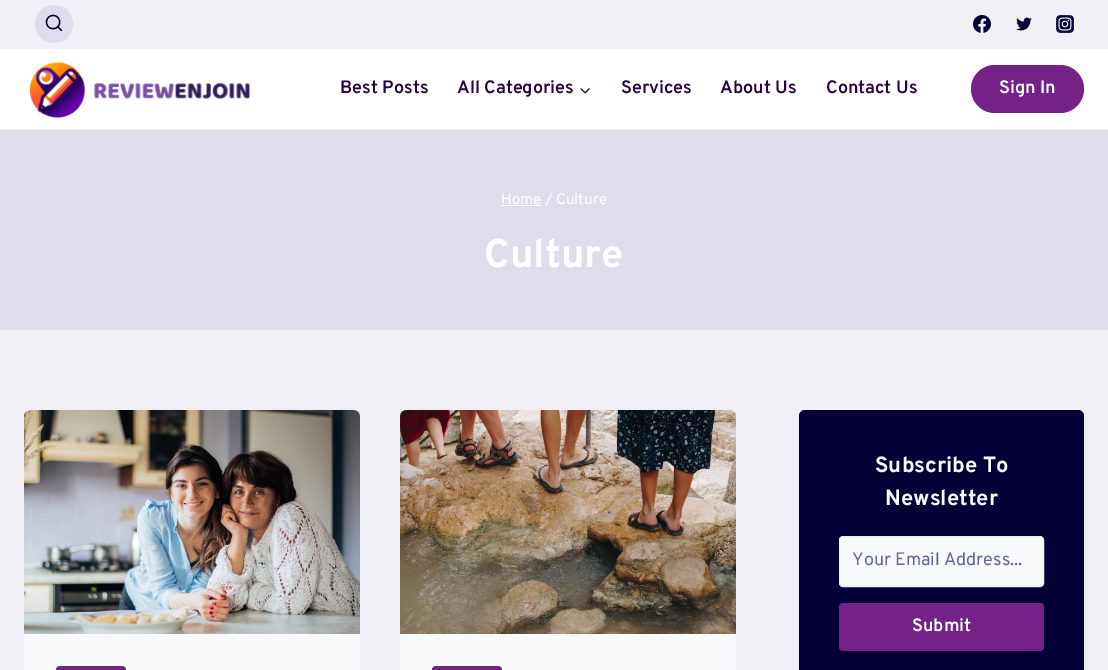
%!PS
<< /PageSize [1108 670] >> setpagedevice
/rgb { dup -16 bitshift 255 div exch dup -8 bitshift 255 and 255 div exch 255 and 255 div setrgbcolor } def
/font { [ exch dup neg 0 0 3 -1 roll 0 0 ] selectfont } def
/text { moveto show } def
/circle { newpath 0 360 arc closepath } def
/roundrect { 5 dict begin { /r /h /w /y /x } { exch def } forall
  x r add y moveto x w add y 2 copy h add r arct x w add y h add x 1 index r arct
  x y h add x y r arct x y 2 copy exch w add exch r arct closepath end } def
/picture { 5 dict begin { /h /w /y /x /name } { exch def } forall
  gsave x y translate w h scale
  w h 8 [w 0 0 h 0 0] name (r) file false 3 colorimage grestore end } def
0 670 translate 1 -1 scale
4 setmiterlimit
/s1 { /Overpass-SemiBold 18 font 16#290342 rgb } def
/s2 { /Overpass-SemiBold 18 font 16#FFFFFF rgb } def
/s3 { /Overpass-Regular 15.25 font 16#FFFFFF rgb } def
/s4 { /Overpass-Bold 40 font 16#FFFFFF rgb } def
/s5 { /Overpass-Bold 22 font 16#F8F9FA rgb } def
/s6 { /Overpass-Regular 18 font 16#666699 rgb } def
16#EFEFF5 rgb
0 0 1108 670 rectfill
16#FFFFFF rgb
0 49 1108 80 rectfill
16#DEDDEB rgb
54 24 19 circle fill
(pic1.raw) 45 14 18 18 picture
(pic2.raw) 973 15 18 18 picture
(pic3.raw) 1016 17 16 14 picture
(pic4.raw) 1056 15 18 18 picture
16#EEEEEE rgb
0 48 1108 1 rectfill
0 129 1108 1 rectfill
(pic5.raw) 29 61 222 58 picture
s1
(Best Posts) 340 93 text
(All Categories) 457 93 text
(pic6.raw) 580 88 10 6 picture
(Services) 621 93 text
(About Us) 720 93 text
(Contact Us) 826 93 text
16#742188 rgb
971 65 113 48 24 roundrect fill
s2
(Sign In) 999 93 text
16#DEDDEB rgb
0 130 1108 200 rectfill
16#FFFFFF rgb
501 205 40 1 rectfill
s3
(Home / Culture) 501 204 text
s4
(Culture) 484 267 text
16#F8F9FA rgb
24 410 336 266 6 roundrect fill
(pic7.raw) 24 410 336 224 picture
16#742188 rgb
56 666 70 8 4 roundrect fill
16#F8F9FA rgb
400 410 336 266 6 roundrect fill
(pic8.raw) 400 410 336 224 picture
16#742188 rgb
432 666 70 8 4 roundrect fill
16#040037 rgb
799 410 285 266 6 roundrect fill
s5
(Subscribe To) 875 472 text
(Newsletter) 885 505 text
839.5 536.5 204 50 3.5 roundrect gsave fill grestore
16#EEEEEE rgb
stroke
s6
(Your Email Address...) 852 565 text
16#742188 rgb
839 603 205 48 4 roundrect fill
s2
(Submit) 912 631 text
showpage
